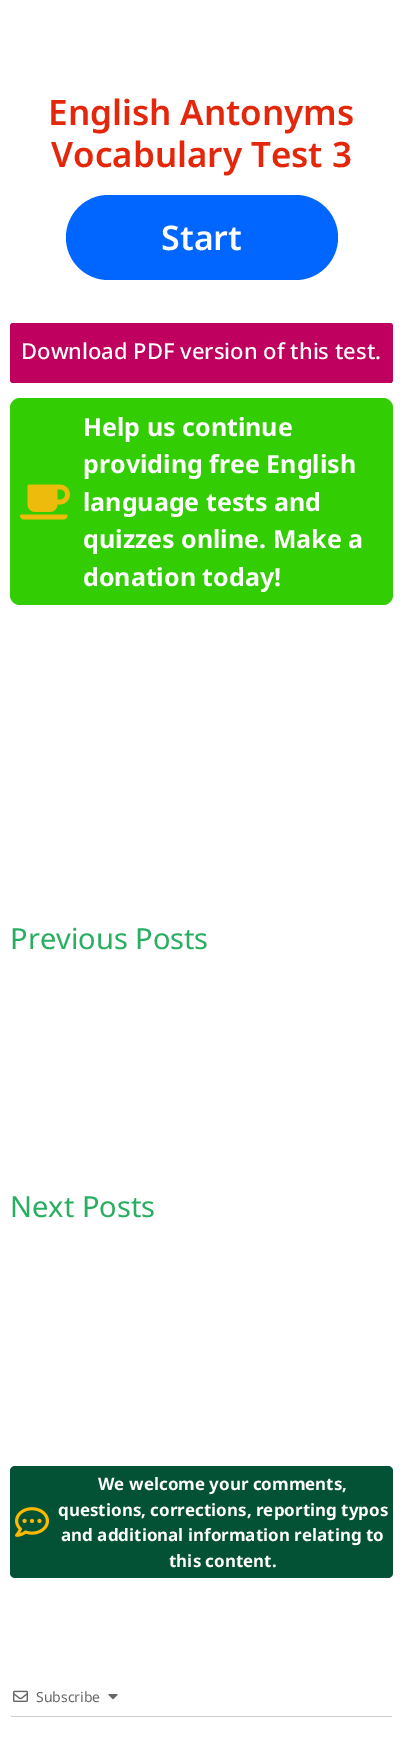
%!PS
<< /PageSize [403 1764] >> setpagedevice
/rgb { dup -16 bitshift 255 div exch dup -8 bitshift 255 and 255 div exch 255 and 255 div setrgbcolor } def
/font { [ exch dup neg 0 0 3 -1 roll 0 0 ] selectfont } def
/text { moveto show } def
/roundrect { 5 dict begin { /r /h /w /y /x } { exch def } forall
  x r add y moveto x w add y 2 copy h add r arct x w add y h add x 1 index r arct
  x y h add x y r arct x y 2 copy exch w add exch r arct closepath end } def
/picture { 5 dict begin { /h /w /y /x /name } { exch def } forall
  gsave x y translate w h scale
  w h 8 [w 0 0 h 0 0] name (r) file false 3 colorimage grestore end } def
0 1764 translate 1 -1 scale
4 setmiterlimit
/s1 { /NotoSans-SemiBold 35 font 16#E4260B rgb } def
/s2 { /NotoSans-SemiBold 34 font 16#FFFFFF rgb } def
/s3 { /NotoSans-Medium 22 font 16#FFFFFF rgb } def
/s4 { /NotoSans-Bold 25 font 16#FFFFFF rgb } def
/s5 { /NotoSans-Regular 29 font 16#27AE60 rgb } def
/s6 { /NotoSans-Bold 17 font 16#FFFFFF rgb } def
/s7 { /NotoSans-Regular 14 font 16#666666 rgb } def
16#FFFFFF rgb
0 0 403 1764 rectfill
s1
(English Antonyms) 48 125 text
(Vocabulary Test 3) 51 167 text
16#0066FF rgb
66 195 272 85 42.5 roundrect fill
s2
(Start) 161 250 text
16#BF005F rgb
10 323 383 60 3 roundrect fill
12 382 380 1 rectfill
s3
(Download PDF version of this test.) 21 359 text
16#32CD02 rgb
10 398 383 207 10 roundrect fill
(pic1.raw) 20 484 50 36 picture
s4
(Help us continue) 83 436 text
(providing free English) 83 473 text
(language tests and) 83 511 text
(quizzes online. Make a) 83 548 text
(donation today!) 83 586 text
s5
(Previous Posts) 10 949 text
(Next Posts) 10 1217 text
16#035235 rgb
10 1466 383 112 5 roundrect fill
(pic2.raw) 15 1507 34 30 picture
s6
(We welcome your comments,) 98 1490 text
(questions, corrections, reporting typos) 58 1516 text
(and additional information relating to) 61 1541 text
(this content.) 169 1567 text
16#CCCCCC rgb
11 1716 381 1 rectfill
(pic3.raw) 13 1690 15 12 picture
s7
(Subscribe) 36 1702 text
(pic4.raw) 108 1694 10 6 picture
showpage
